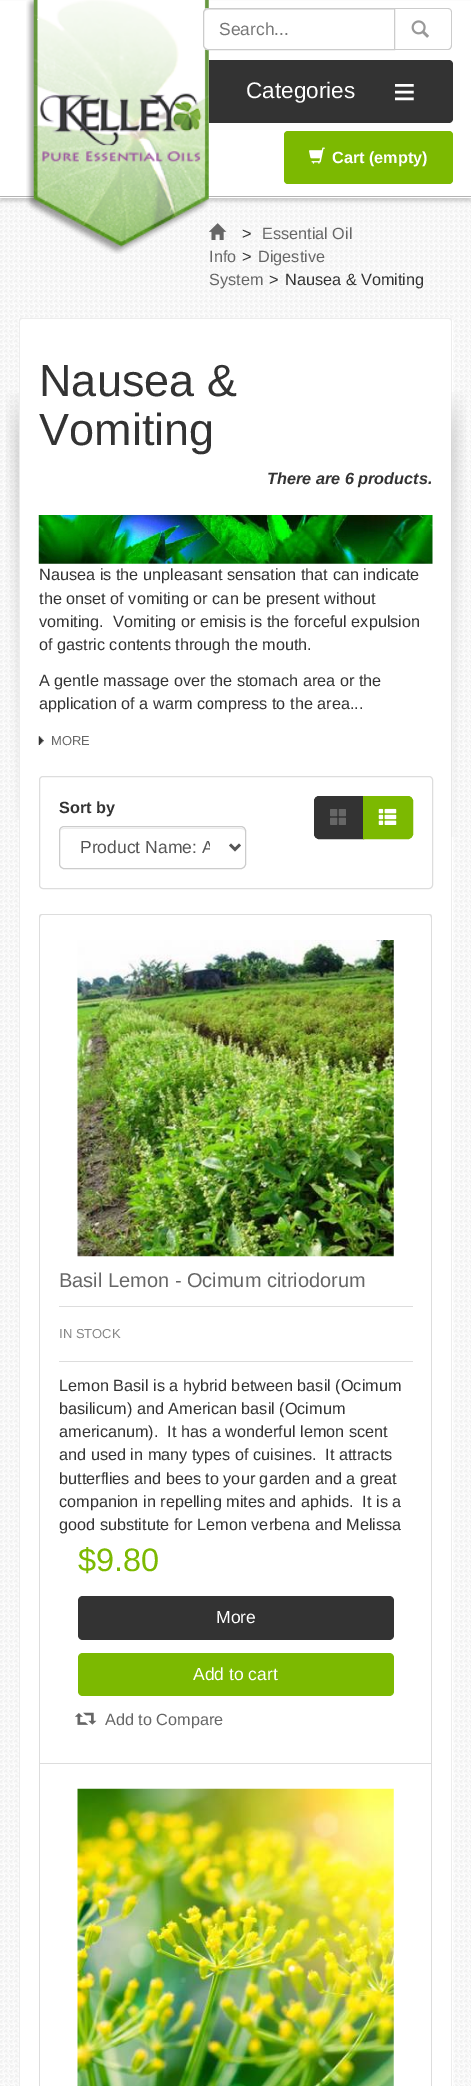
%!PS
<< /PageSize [471 2086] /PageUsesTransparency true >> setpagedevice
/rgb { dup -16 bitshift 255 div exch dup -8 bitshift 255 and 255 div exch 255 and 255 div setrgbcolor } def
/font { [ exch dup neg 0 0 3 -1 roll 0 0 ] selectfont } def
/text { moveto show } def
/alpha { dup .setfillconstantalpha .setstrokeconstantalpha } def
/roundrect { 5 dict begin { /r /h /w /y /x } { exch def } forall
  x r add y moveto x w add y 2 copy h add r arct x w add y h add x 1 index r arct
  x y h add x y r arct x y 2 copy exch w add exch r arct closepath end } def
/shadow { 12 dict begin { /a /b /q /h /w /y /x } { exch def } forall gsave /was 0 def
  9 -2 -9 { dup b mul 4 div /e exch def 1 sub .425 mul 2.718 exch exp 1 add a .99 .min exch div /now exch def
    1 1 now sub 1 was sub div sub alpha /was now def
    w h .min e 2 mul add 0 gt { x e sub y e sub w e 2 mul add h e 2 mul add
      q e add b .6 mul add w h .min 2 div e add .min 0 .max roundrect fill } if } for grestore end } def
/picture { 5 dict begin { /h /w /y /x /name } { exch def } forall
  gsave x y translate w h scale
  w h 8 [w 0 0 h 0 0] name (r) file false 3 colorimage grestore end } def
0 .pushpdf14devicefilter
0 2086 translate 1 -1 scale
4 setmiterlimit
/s1 { /LiberationSans-Regular 17.5 font 16#777777 rgb } def
/s2 { /LiberationSans-Regular 22.5 font 16#FFFFFF rgb } def
/s3 { /LiberationSans-Regular 39 font 16#FFFFFF rgb } def
/s4 { /LiberationSans-Bold 16.25 font 16#FFFFFF rgb } def
/s5 { /LiberationSans-Regular 16.25 font 16#333333 rgb } def
/s6 { /LiberationSans-Regular 16.25 font 16#666666 rgb } def
/s7 { /LiberationSans-Regular 45 font 16#333333 rgb } def
/s8 { /LiberationSans-BoldItalic 16.25 font 16#333333 rgb } def
/s9 { /LiberationSans-Regular 13 font 16#666666 rgb } def
/s10 { /LiberationSans-Bold 16.25 font 16#333333 rgb } def
/s11 { /LiberationSans-Regular 17.5 font 16#555555 rgb } def
/s12 { /LiberationSans-Regular 20 font 16#666666 rgb } def
/s13 { /LiberationSans-Regular 13 font 16#858585 rgb } def
/s14 { /LiberationSans-Regular 32.5 font 16#7CB901 rgb } def
/s15 { /LiberationSans-Regular 17.5 font 16#FFFFFF rgb } def
16#FFFFFF rgb
0 0 471 2086 rectfill
(pic1.raw) 0 198 471 1888 picture
16#999999 rgb
0 4 471 197 0 2 0.5 shadow
16#FFFFFF rgb
0 1 471 197 rectfill
16#B3B3B3 rgb
0 196 471 1 rectfill
(pic6.raw) 208 223 19 17 picture
(pic2.raw) 26 0 183 254 picture
(pic3.raw) 37 18 2 2 picture
16#FFFFFF rgb
208 8 moveto 395 8 lineto 395 50 lineto 208 50 lineto 205 50 203 48 203 45 curveto 203 13 lineto 203 10 205 8 208 8 curveto closepath fill
16#ECECEC rgb
208 10 moveto 394 10 lineto 394 9 lineto 208 9 lineto 205 9 204 11 204 14 curveto 204 12 205 10 208 10 curveto closepath fill
16#CCCCCC rgb
208 8.5 moveto 394.5 8.5 lineto 394.5 49.5 lineto 208 49.5 lineto 205.5 49.5 203.5 47.5 203.5 45 curveto 203.5 13 lineto 203.5 10.5 205.5 8.5 208 8.5 curveto closepath stroke
s1
(Search...) 219 35 text
16#CCCCCC rgb
395 8 moveto 448 8 lineto 450 8 452 10 452 12 curveto 452 45 lineto 452 48 450 50 448 50 curveto 395 50 lineto closepath 395 9 moveto 448 9 lineto 450 9 451 10 451 12 curveto 451 45 lineto 451 47 450 49 448 49 curveto 395 49 lineto closepath eofill
(pic4.raw) 411 20 18 18 picture
16#333333 rgb
209 60 moveto 449 60 lineto 451 60 453 62 453 64 curveto 453 119 lineto 453 121 451 123 449 123 curveto 209 123 lineto closepath fill
s2
(Categories) 246 98 text
s3
(≡) 393 105 text
16#7CB901 rgb
284 131 169 53 4 roundrect fill
(pic5.raw) 309 147 16 17 picture
s4
(Cart \(empty\)) 332 163 text
s5
(>) 242 239 text
s6
(Essential Oil) 262 239 text
(Info) 209 262 text
s5
(>) 242 262 text
s6
(Digestive) 258 262 text
(System) 209 285 text
s5
(>) 269 285 text
(Nausea & Vomiting) 285 285 text
(pic7.raw) 6 393 13 427 picture
16#FFFFFF rgb
19 318 434 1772 4 roundrect fill
0.5 alpha
16#DCDCDC rgb
22 318 moveto 449 318 lineto 451 318 452 319 452 321 curveto 452 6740 lineto 452 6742 451 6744 449 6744 curveto 22 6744 lineto 20 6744 19 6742 19 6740 curveto 19 321 lineto 19 319 20 318 22 318 curveto closepath 22 319 moveto 449 319 lineto 450 319 451 320 451 321 curveto 451 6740 lineto 451 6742 450 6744 449 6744 curveto 22 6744 lineto 21 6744 20 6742 20 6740 curveto 20 321 lineto 20 320 21 319 22 319 curveto closepath eofill
1 alpha
s7
(Nausea &) 39 396 text
(Vomiting) 39 445 text
s8
(There are 6 products.) 267 484 text
(pic8.raw) 38 515 395 49 picture
s5
(Nausea is the unpleasant sensation that can indicate) 39 580 text
(the onset of vomiting or can be present without) 39 604 text
(vomiting.  Vomiting or emisis is the forceful expulsion) 39 627 text
(of gastric contents through the mouth.) 39 650 text
(A gentle massage over the stomach area or the) 39 686 text
(application of a warm compress to the area...) 39 709 text
(pic9.raw) 38 736 6 9 picture
s9
(MORE) 51 745 text
16#DDDDDD rgb
39.5 776.5 393 112 3.5 roundrect stroke
s10
(Sort by) 59 813 text
16#ECECEC rgb
64 829 moveto 241 829 lineto 243 829 245 830 245 832 curveto 245 830 243 828 241 828 curveto 64 828 lineto 62 828 60 830 60 832 curveto 60 830 62 829 64 829 curveto closepath fill
16#CCCCCC rgb
59.5 826.5 186 42 4.5 roundrect stroke
16#555555 rgb
2.5 setlinewidth
230 844.5 moveto 235 849.5 lineto 240 844.5 lineto stroke
gsave
80 836 130 23 rectclip
s11
(Product Name: A) 80 853 text
grestore
16#333333 rgb
319 796.5 moveto 363.5 796.5 lineto 363.5 838.5 lineto 319 838.5 lineto 316.5 838.5 314.5 836.5 314.5 834 curveto 314.5 801 lineto 314.5 798.5 316.5 796.5 319 796.5 curveto closepath gsave fill grestore
1 setlinewidth
stroke
(pic10.raw) 330 809 16 16 picture
16#7CB901 rgb
363.5 796.5 moveto 408 796.5 lineto 410.5 796.5 412.5 798.5 412.5 801 curveto 412.5 834 lineto 412.5 836.5 410.5 838.5 408 838.5 curveto 363.5 838.5 lineto closepath gsave fill grestore
stroke
(pic11.raw) 378 808 19 17 picture
16#DDDDDD rgb
42 914 moveto 429 914 lineto 431 914 432 915 432 918 curveto 432 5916 lineto 432 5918 431 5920 429 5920 curveto 42 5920 lineto 40 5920 39 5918 39 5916 curveto 39 918 lineto 39 915 40 914 42 914 curveto closepath 42 915 moveto 429 915 lineto 430 915 431 916 431 918 curveto 431 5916 lineto 431 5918 430 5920 429 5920 curveto 42 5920 lineto 41 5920 40 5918 40 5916 curveto 40 918 lineto 40 916 41 915 42 915 curveto closepath eofill
40 1763 391 1 rectfill
(pic12.raw) 77 940 317 317 picture
s12
(Basil Lemon - Ocimum citriodorum) 59 1287 text
16#DDDDDD rgb
59 1306 354 1 rectfill
59 1361 354 1 rectfill
s13
(IN STOCK) 59 1338 text
s5
(Lemon Basil is a hybrid between basil \(Ocimum) 59 1391 text
(basilicum\) and American basil \(Ocimum) 59 1414 text
(americanum\).  It has a wonderful lemon scent) 59 1437 text
(and used in many types of cuisines.  It attracts) 59 1460 text
(butterflies and bees to your garden and a great) 59 1484 text
(companion in repelling mites and aphids.  It is a) 59 1507 text
(good substitute for Lemon verbena and Melissa) 59 1530 text
s14
($9.80) 78 1571 text
16#333333 rgb
83 1596 moveto 389 1596 lineto 392 1596 394 1598 394 1601 curveto 394 1635 lineto 394 1638 392 1640 389 1640 curveto 83 1640 lineto 80 1640 78 1638 78 1635 curveto 78 1601 lineto 78 1598 80 1596 83 1596 curveto closepath fill
s15
(More) 216 1623 text
16#7CB901 rgb
83 1653 moveto 389 1653 lineto 392 1653 394 1655 394 1658 curveto 394 1691 lineto 394 1694 392 1696 389 1696 curveto 83 1696 lineto 80 1696 78 1694 78 1691 curveto 78 1658 lineto 78 1655 80 1653 83 1653 curveto closepath fill
s15
(Add to cart) 193 1680 text
(pic13.raw) 75 1712 22 13 picture
s6
(Add to Compare) 105 1725 text
(pic14.raw) 77 1788 317 298 picture
(pic15.raw) 451 392 15 445 picture
.poppdf14devicefilter showpage
